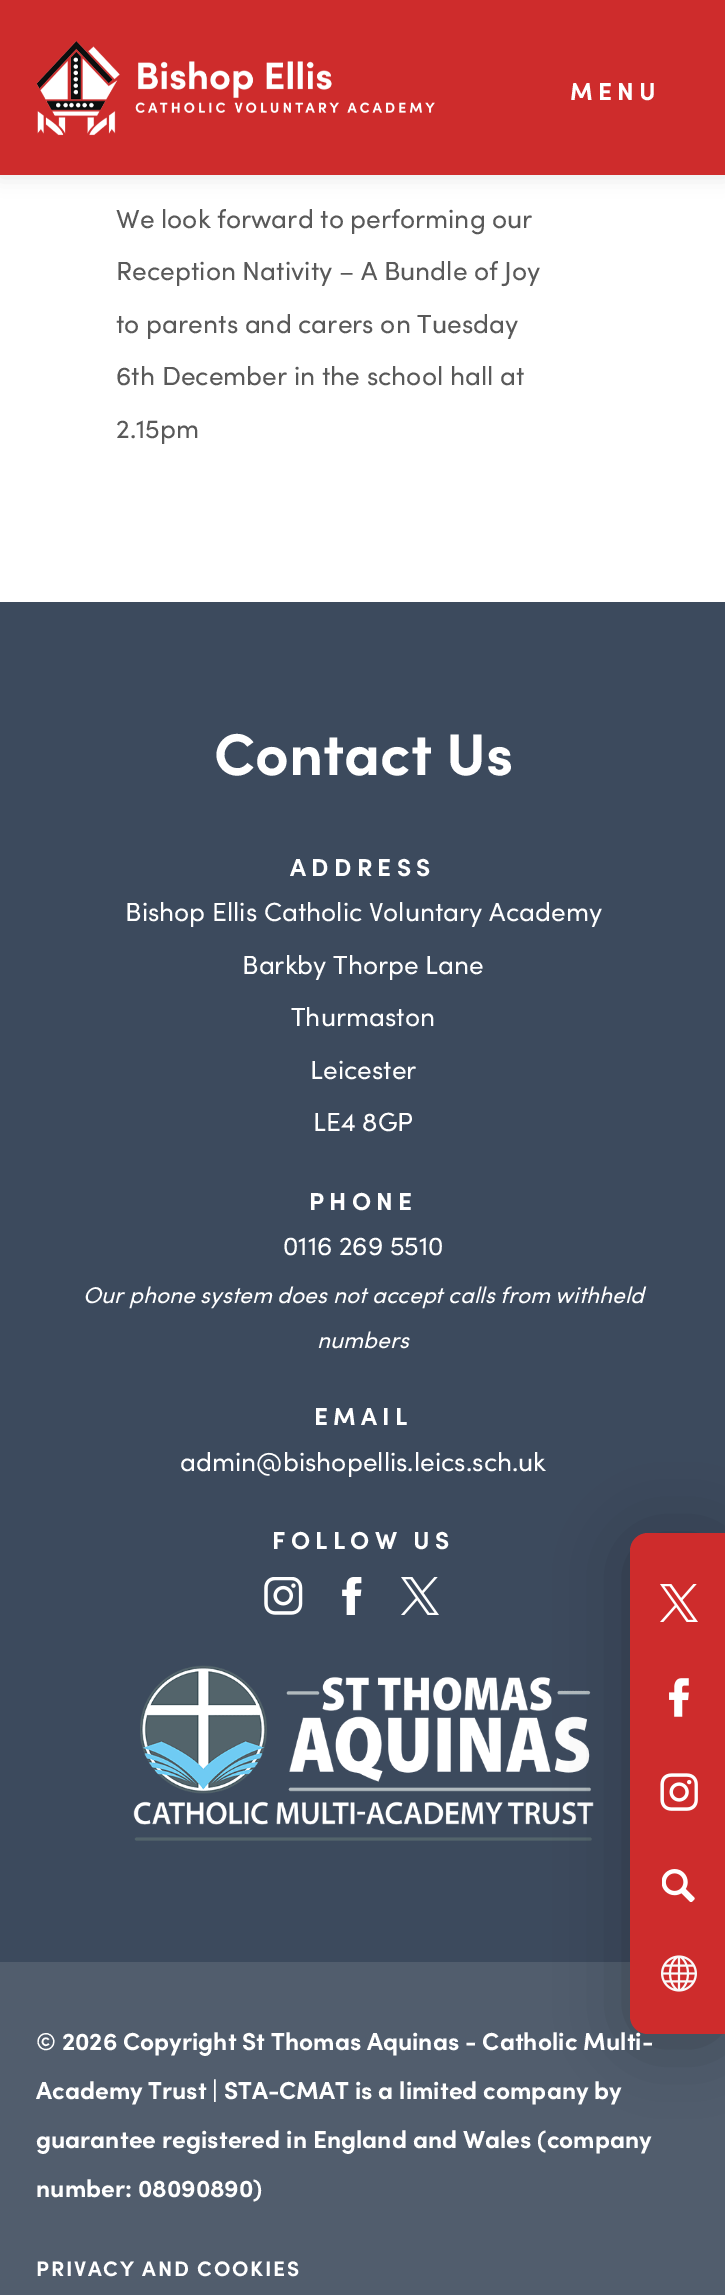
%!PS
<< /PageSize [725 2295] /PageUsesTransparency true >> setpagedevice
/rgb { dup -16 bitshift 255 div exch dup -8 bitshift 255 and 255 div exch 255 and 255 div setrgbcolor } def
/font { [ exch dup neg 0 0 3 -1 roll 0 0 ] selectfont } def
/text { moveto show } def
/alpha { dup .setfillconstantalpha .setstrokeconstantalpha } def
/roundrect { 5 dict begin { /r /h /w /y /x } { exch def } forall
  x r add y moveto x w add y 2 copy h add r arct x w add y h add x 1 index r arct
  x y h add x y r arct x y 2 copy exch w add exch r arct closepath end } def
/shadow { 12 dict begin { /a /b /q /h /w /y /x } { exch def } forall gsave /was 0 def
  9 -2 -9 { dup b mul 4 div /e exch def 1 sub .425 mul 2.718 exch exp 1 add a .99 .min exch div /now exch def
    1 1 now sub 1 was sub div sub alpha /was now def
    w h .min e 2 mul add 0 gt { x e sub y e sub w e 2 mul add h e 2 mul add
      q e add b .6 mul add w h .min 2 div e add .min 0 .max roundrect fill } if } for grestore end } def
/picture { 5 dict begin { /h /w /y /x /name } { exch def } forall
  gsave x y translate w h scale
  w h 8 [w 0 0 h 0 0] name (r) file false 3 colorimage grestore end } def
0 .pushpdf14devicefilter
0 2295 translate 1 -1 scale
4 setmiterlimit
/s1 { /Sofia-Regular 26.25 font 16#595959 rgb } def
/s2 { /Sofia-Bold 58.75 font 16#FFFFFF rgb } def
/s3 { /Sofia-Regular 26.25 font 16#FFFFFF rgb } def
/s4 { /Sofia-Italic 22.75 font 16#FFFFFF rgb } def
/s5 { /Sofia-Bold 24.5 font 16#FFFFFF rgb } def
16#FFFFFF rgb
0 0 725 2295 rectfill
16#000000 rgb
0 2 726 175 0 9.5 0.1 shadow
16#CE2C2C rgb
0 0 725 175 rectfill
(pic1.raw) 36 41 399 95 picture
/Sofia-Bold 24.5 font
16#FFFFFF rgb
570 100 moveto 5.25 0 (MENU) ashow
s1
(We look forward to performing our) 116 228 text
(Reception Nativity – A Bundle of Joy) 116 280 text
(to parents and carers on Tuesday) 116 333 text
(6th December in the school hall at) 116 385 text
(2.15pm) 116 438 text
16#3C4A5D rgb
0 602 725 1360 rectfill
s2
(Contact Us) 214 775 text
/Sofia-Bold 24.5 font
290 876 moveto 5.25 0 (ADDRESS) ashow
s3
(Bishop Ellis Catholic Voluntary Academy) 125 921 text
(Barkby Thorpe Lane) 242 974 text
(Thurmaston) 291 1026 text
(Leicester) 310 1079 text
(LE4 8GP) 313 1131 text
/Sofia-Bold 24.5 font
309 1210 moveto 5.25 0 (PHONE) ashow
s3
(0116 269 5510) 283 1255 text
s4
(Our phone system does not accept calls from withheld) 83 1303 text
(numbers) 317 1348 text
/Sofia-Bold 24.5 font
314 1425 moveto 5.25 0 (EMAIL) ashow
s3
(admin@bishopellis.leics.sch.uk) 180 1471 text
/Sofia-Bold 24.5 font
272 1549 moveto 5.25 0 (FOLLOW US) ashow
(pic2.raw) 264 1577 39 38 picture
(pic3.raw) 342 1577 20 38 picture
(pic4.raw) 401 1577 38 38 picture
(pic5.raw) 133 1665 461 176 picture
16#515D6D rgb
0 1962 725 333 rectfill
16#000000 rgb
630 1540 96 501 18 35 0.25 shadow
s5
(© 2026 Copyright St Thomas Aquinas - Catholic Multi-) 36 2050 text
16#CE2C2C rgb
648 1533 moveto 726 1533 lineto 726 2034 lineto 648 2034 lineto 638 2034 630 2026 630 2016 curveto 630 1551 lineto 630 1541 638 1533 648 1533 curveto closepath fill
(pic6.raw) 660 1584 38 38 picture
(pic7.raw) 669 1678 20 39 picture
(pic8.raw) 660 1773 38 38 picture
(pic9.raw) 662 1869 33 33 picture
(pic10.raw) 661 1955 36 37 picture
s5
(Academy Trust | STA-CMAT is a limited company by) 36 2099 text
(guarantee registered in England and Wales \(company) 36 2148 text
(number: 08090890\)) 36 2197 text
/Sofia-Bold 21 font
36 2276 moveto 1.75 0 (PRIVACY AND COOKIES) ashow
.poppdf14devicefilter showpage
